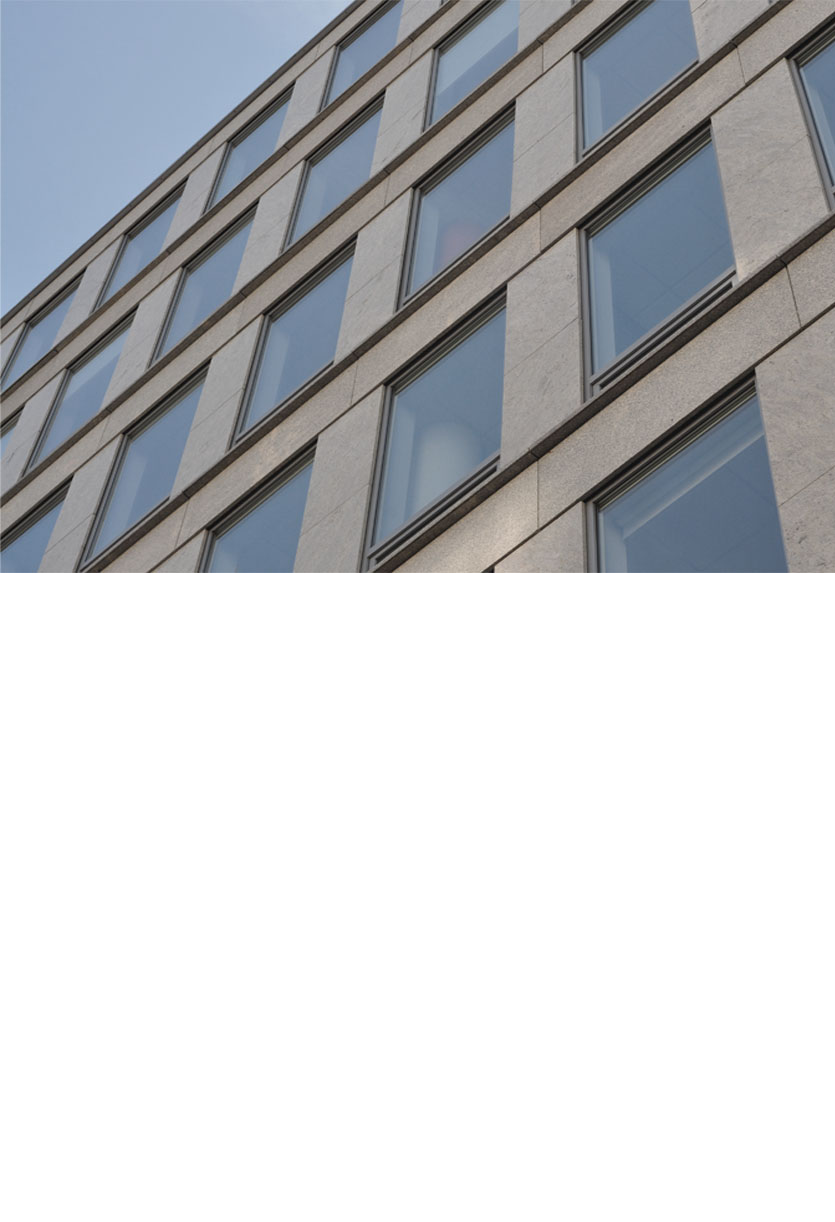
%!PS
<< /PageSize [835 1222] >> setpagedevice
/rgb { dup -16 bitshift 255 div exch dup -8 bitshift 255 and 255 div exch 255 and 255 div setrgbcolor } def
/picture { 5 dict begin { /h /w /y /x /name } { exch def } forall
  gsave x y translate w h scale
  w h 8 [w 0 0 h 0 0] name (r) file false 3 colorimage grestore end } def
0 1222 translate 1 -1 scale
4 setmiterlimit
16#FFFFFF rgb
0 0 835 1222 rectfill
(pic1.raw) 0 0 835 573 picture
showpage
